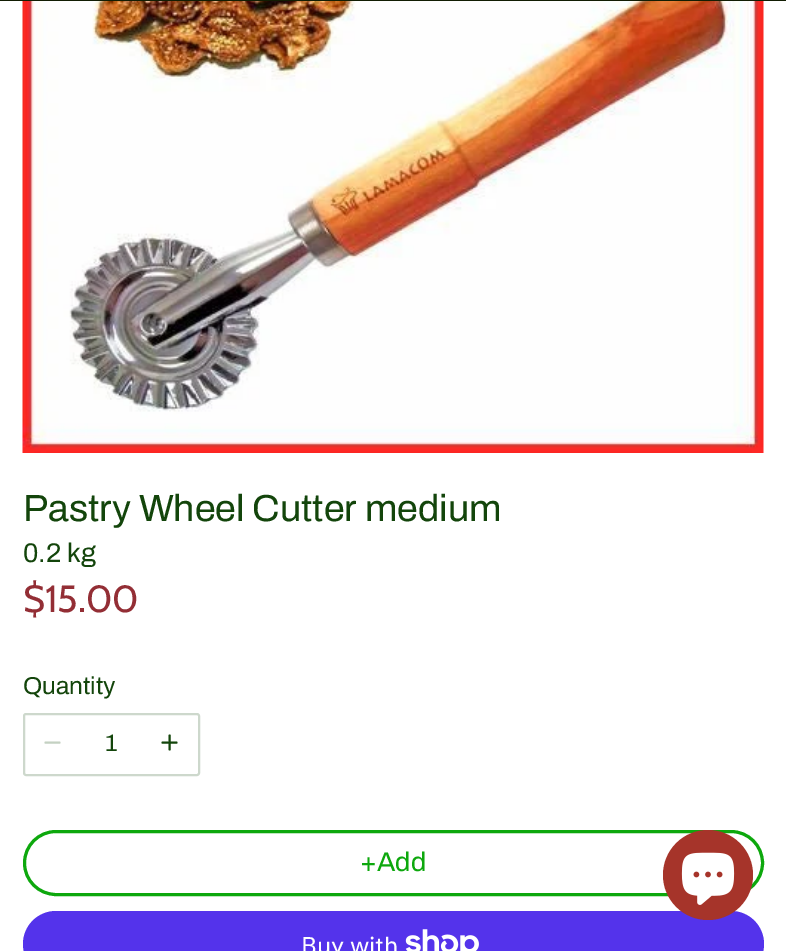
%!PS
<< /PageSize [786 951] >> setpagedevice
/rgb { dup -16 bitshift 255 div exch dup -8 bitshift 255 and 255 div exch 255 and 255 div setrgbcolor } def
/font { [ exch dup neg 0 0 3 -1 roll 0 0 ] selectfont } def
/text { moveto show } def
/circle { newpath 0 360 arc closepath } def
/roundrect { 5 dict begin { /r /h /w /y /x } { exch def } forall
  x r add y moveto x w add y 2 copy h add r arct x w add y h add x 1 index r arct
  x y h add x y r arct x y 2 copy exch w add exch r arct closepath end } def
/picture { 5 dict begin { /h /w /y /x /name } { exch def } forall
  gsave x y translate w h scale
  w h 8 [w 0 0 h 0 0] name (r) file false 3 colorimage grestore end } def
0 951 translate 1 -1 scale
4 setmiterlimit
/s1 { /Archivo-Regular 37.75 font 16#13450B rgb } def
/s2 { /Archivo-Regular 27 font 16#13450B rgb } def
/s3 { /Cabin-Regular 37.75 font 16#932E35 rgb } def
/s4 { /Archivo-Regular 24.5 font 16#13450B rgb } def
/s5 { /Archivo-Regular 24 font 16#13450B rgb } def
/s6 { /Archivo-Regular 27 font 16#0DA80D rgb } def
/s7 { /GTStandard-Regular 24 font 16#FFFFFF rgb } def
16#FFFFFF rgb
0 0 786 951 rectfill
16#121D03 rgb
0 0 786 1 rectfill
(pic1.raw) 22 1 742 452 picture
s1
(Pastry Wheel Cutter medium) 23 521 text
s2
(0.2 kg) 23 562 text
s3
($15.00) 23 612 text
s4
(Quantity) 23 694 text
16#CDD8CC rgb
2 setlinewidth
24 714 175 61 2 roundrect stroke
16#C4D1C2 rgb
1 setlinecap
1 setlinejoin
45.5 742.5 moveto 59.5 742.5 lineto stroke
s5
(1) 105 751 text
169.5 735.5 moveto 169.5 749.5 lineto 162.5 742.5 moveto 176.5 742.5 lineto stroke
16#0DA80D rgb
3 setlinewidth
0 setlinecap
0 setlinejoin
24.5 831.5 738 63 31.5 roundrect stroke
s6
(+Add) 360 871 text
16#5433EB rgb
23 911 741 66 33 roundrect fill
s7
(Buy with) 301 954 text
(pic2.raw) 405 929 74 22 picture
16#A6342A rgb
708 875 45 circle fill
(pic3.raw) 681 852 54 53 picture
showpage
